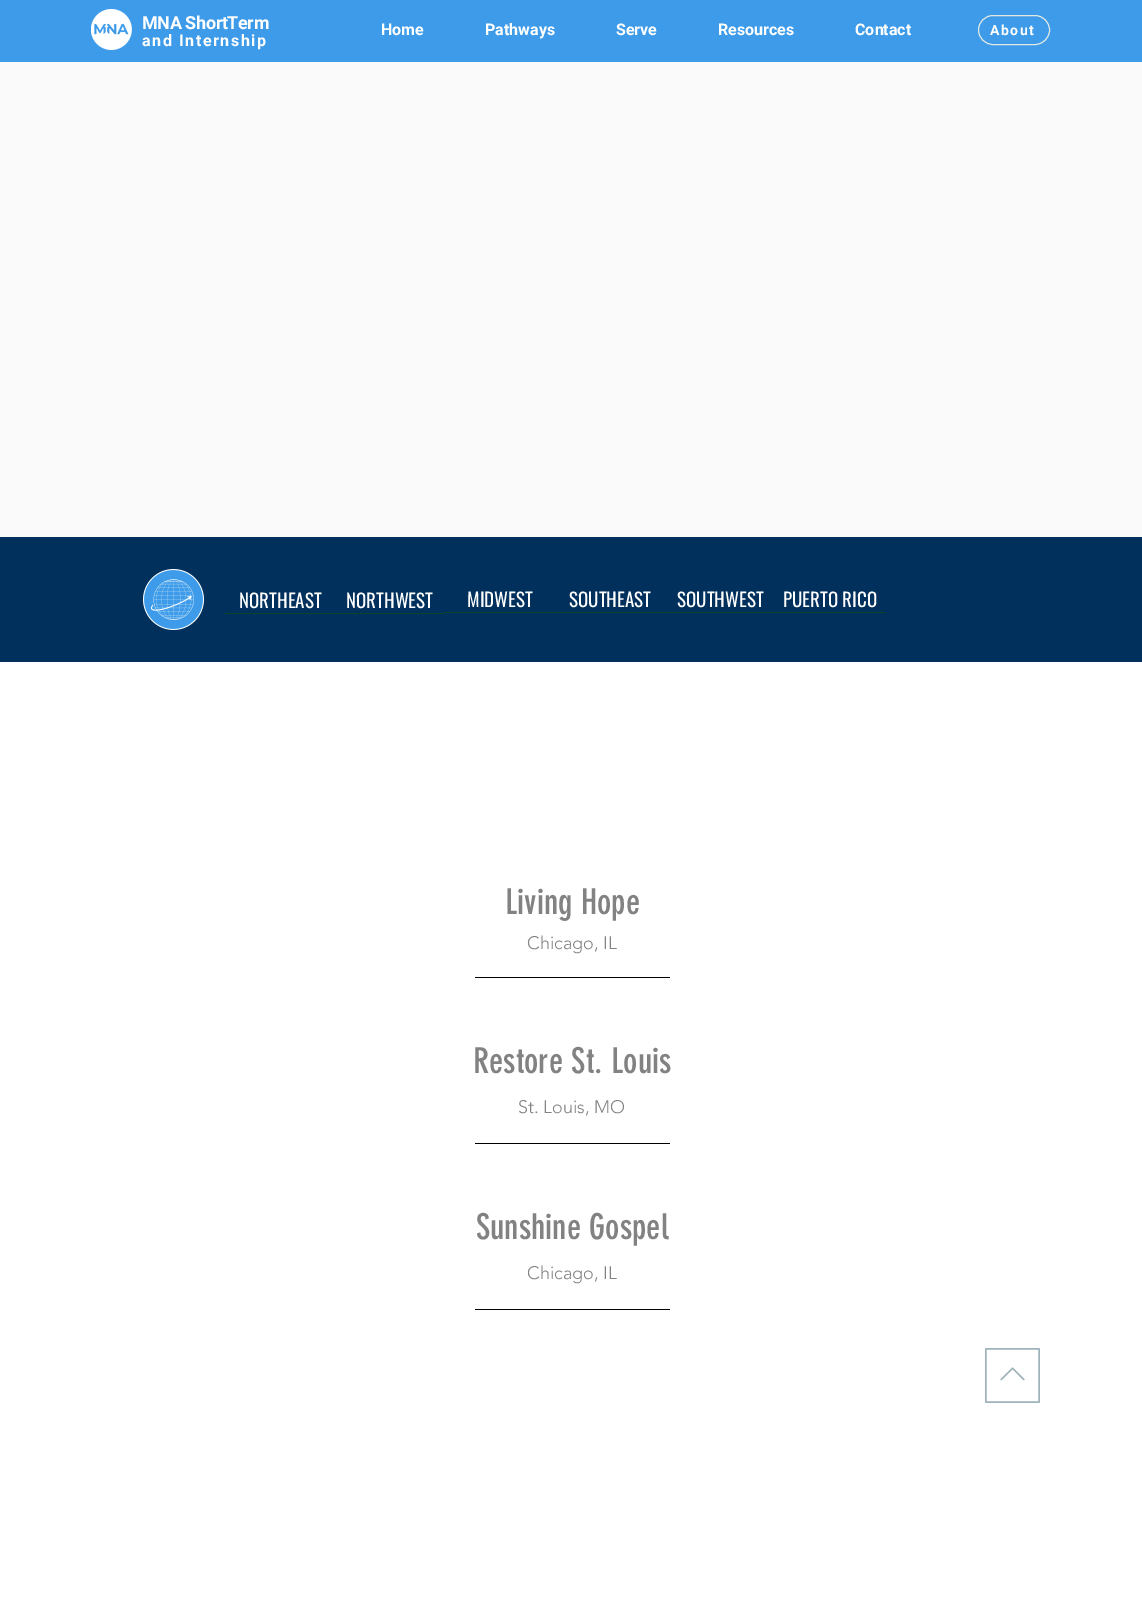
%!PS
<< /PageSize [1142 1620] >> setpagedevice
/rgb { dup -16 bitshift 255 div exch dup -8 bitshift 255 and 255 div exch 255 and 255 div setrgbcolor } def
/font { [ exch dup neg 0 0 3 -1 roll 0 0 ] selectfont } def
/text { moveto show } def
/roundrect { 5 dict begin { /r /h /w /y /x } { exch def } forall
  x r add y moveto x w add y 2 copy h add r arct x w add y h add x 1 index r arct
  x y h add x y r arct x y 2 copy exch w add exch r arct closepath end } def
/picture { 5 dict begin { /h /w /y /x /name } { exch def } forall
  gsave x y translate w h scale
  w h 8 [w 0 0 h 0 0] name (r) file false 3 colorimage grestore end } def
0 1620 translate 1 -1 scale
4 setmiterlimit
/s1 { /Roboto-Bold 16 font 16#FFFFFF rgb } def
/s2 { /Oswald-Regular 19 font 16#FFFFFF rgb } def
/s3 { /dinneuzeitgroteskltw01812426-Regular 35 font 16#828282 rgb } def
/s4 { /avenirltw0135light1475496-Light 18 font 16#828282 rgb } def
16#FFFFFF rgb
0 0 1142 1620 rectfill
16#3D9BE9 rgb
0 0 1142 62 rectfill
(pic1.raw) 91 9 41 41 picture
/Roboto-Bold 18 font
16#FFFFFF rgb
142 29 moveto -0.4 0 (MNA ShortTerm) ashow
s1
(Home) 381 35 text
(Pathways) 485 35 text
(Serve) 616 35 text
(Resources) 718 35 text
(Contact) 855 35 text
16#DFE8E3 rgb
978.5 15.5 71 29 14.5 roundrect stroke
/Roboto-Bold 14 font
16#FFFFFF rgb
990 35 moveto 1.5 0 (About) ashow
/Roboto-Bold 16 font
142 46 moveto 1.6 0 (and Internship) ashow
16#FAFAFA rgb
0 62 1142 475 rectfill
16#00305B rgb
0 537 1142 125 rectfill
(pic2.raw) 143 569 61 61 picture
16#0C4426 rgb
225 613 220 1 rectfill
s2
(NORTHEAST) 239 608 text
(NORTHWEST) 346 608 text
16#0C4426 rgb
445 612 440 1 rectfill
s2
(MIDWEST) 467 607 text
(SOUTHEAST) 569 607 text
(SOUTHWEST) 677 607 text
(PUERTO RICO) 783 607 text
s3
(Living Hope) 505 914 text
s4
(Chicago, IL) 527 949 text
16#000000 rgb
475 977 195 1 rectfill
s3
(Restore St. Louis) 473 1073 text
s4
(St. Louis, MO) 518 1113 text
16#000000 rgb
475 1143 195 1 rectfill
s3
(Sunshine Gospel) 476 1239 text
s4
(Chicago, IL) 527 1279 text
16#000000 rgb
475 1309 195 1 rectfill
(pic3.raw) 985 1348 55 55 picture
showpage
